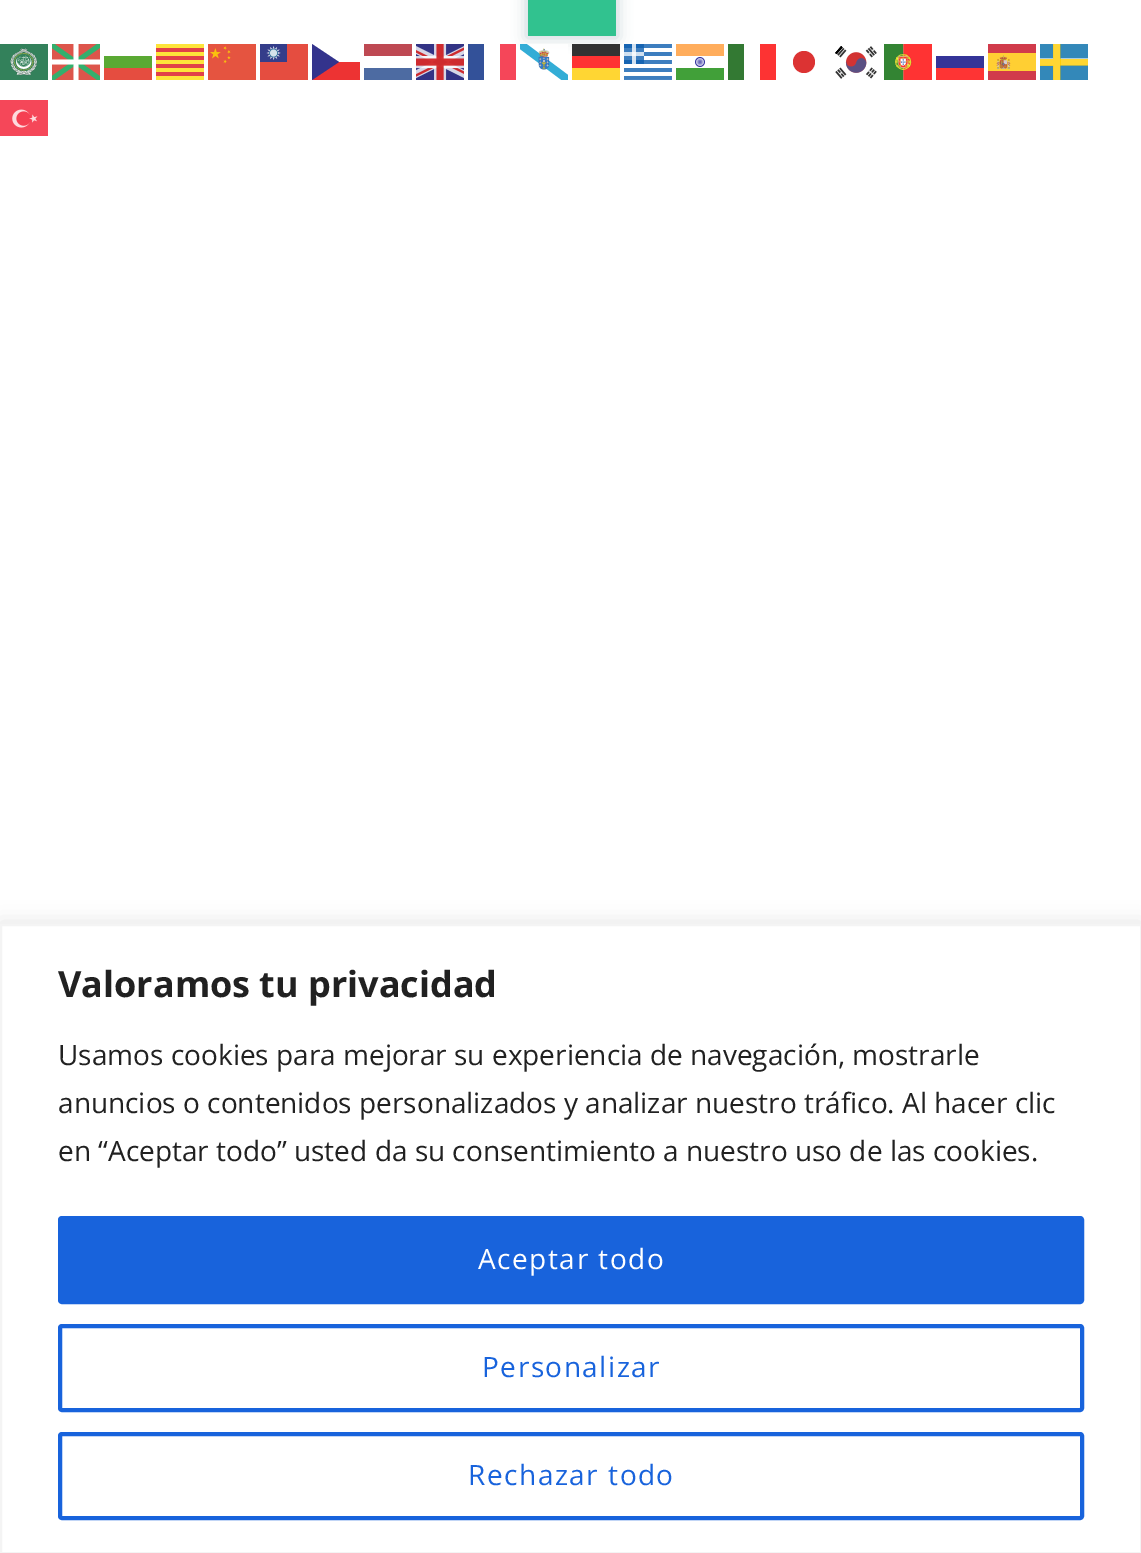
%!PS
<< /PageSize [1141 1553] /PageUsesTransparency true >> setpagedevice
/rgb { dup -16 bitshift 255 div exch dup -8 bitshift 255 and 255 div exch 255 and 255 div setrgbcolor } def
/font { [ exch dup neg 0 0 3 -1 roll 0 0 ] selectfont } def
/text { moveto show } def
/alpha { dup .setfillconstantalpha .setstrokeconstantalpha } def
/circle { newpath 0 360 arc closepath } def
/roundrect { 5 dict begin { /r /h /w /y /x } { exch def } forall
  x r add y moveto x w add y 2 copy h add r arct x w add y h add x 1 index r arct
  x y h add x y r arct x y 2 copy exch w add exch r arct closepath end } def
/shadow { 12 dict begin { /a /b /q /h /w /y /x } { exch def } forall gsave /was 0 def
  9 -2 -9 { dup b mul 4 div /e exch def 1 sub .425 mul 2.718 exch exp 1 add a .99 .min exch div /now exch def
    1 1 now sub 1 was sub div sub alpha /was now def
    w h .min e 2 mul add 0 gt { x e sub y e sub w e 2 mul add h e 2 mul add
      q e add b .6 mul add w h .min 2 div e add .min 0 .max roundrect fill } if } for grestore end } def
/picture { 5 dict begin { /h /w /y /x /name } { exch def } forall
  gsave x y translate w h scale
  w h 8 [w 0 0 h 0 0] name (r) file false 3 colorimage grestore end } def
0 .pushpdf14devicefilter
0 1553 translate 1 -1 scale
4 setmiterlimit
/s1 { /OpenSans-Bold 36 font 16#212121 rgb } def
/s2 { /OpenSans-Regular 28 font 16#212121 rgb } def
16#FFFFFF rgb
0 0 1141 1553 rectfill
16#2C5770 rgb
526 -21 92 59 0 7 0.25 shadow
16#31C28F rgb
528 0 88 36 rectfill
(pic1.raw) 0 44 48 36 picture
16#DD554B rgb
52 44 48 36 rectfill
gsave
52 44 48 36 rectclip
16#33AF6D rgb
4.8 setlinewidth
51 44.5 moveto 100.5 79.5 lineto 100.5 44.5 moveto 51 79.5 lineto stroke
grestore
16#FFFFFF rgb
4.8 setlinewidth
76 44 moveto 76 80 lineto 52 62 moveto 100 62 lineto stroke
16#FDE43A rgb
156 44 48 36 rectfill
(pic2.raw) 208 44 48 36 picture
(pic3.raw) 260 44 48 36 picture
16#ED3333 rgb
312 62 48 18 rectfill
16#33338C rgb
312 44 moveto 339 62 lineto 312 80 lineto closepath eofill
16#BE4953 rgb
364 44 48 12 rectfill
(pic4.raw) 416 44 48 36 picture
16#335199 rgb
468 44 16 36 rectfill
16#F54659 rgb
500 44 16 36 rectfill
(pic5.raw) 520 44 48 36 picture
0.8 alpha
16#000000 rgb
572 44 48 12 rectfill
1 alpha
(pic6.raw) 624 44 48 36 picture
(pic7.raw) 676 44 48 36 picture
16#337933 rgb
728 44 16 36 rectfill
16#FD3333 rgb
760 44 16 36 rectfill
(pic8.raw) 835 46 42 33 picture
(pic9.raw) 884 44 48 36 picture
(pic10.raw) 988 44 48 36 picture
(pic11.raw) 1040 44 48 36 picture
16#5AA933 rgb
104 56 48 12 rectfill
16#E14148 rgb
3.8 setlinewidth
156 50 moveto 204 50 lineto 204 58 moveto 156 58 lineto 156 66 moveto 204 66 lineto 204 74 moveto 156 74 lineto stroke
16#FF3333 rgb
572 56 48 12 rectfill
16#DC3333 rgb
804 62 11 circle fill
16#343498 rgb
936 56 48 12 rectfill
16#E54D40 rgb
104 68 48 12 rectfill
16#4D6BA2 rgb
364 68 48 12 rectfill
16#FFD633 rgb
572 68 48 12 rectfill
16#FE3434 rgb
936 68 48 12 rectfill
(pic12.raw) 0 100 48 36 picture
16#ACABAB rgb
0 922 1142 630 0 10 0.3 shadow
16#FFFFFF rgb
1 925 moveto 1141 925 lineto 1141 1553 lineto 1 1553 lineto closepath gsave fill grestore
16#F4F4F4 rgb
2 setlinewidth
stroke
s1
(Valoramos tu privacidad) 58 997 text
s2
(Usamos cookies para mejorar su experiencia de navegación, mostrarle) 58 1065 text
(anuncios o contenidos personalizados y analizar nuestro tráfico. Al hacer clic) 58 1113 text
(en “Aceptar todo” usted da su consentimiento a nuestro uso de las cookies.) 58 1161 text
16#1863DC rgb
60 1218 1022 84 2 roundrect gsave fill grestore
4 setlinewidth
stroke
16#FFFFFF rgb
478 1269 moveto 1.5 0 (Aceptar todo) ashow
16#1863DC rgb
60 1326 1022 84 2 roundrect stroke
482 1377 moveto 1.5 0 (Personalizar) ashow
60 1434 1022 84 2 roundrect stroke
468 1485 moveto 1.5 0 (Rechazar todo) ashow
.poppdf14devicefilter showpage
